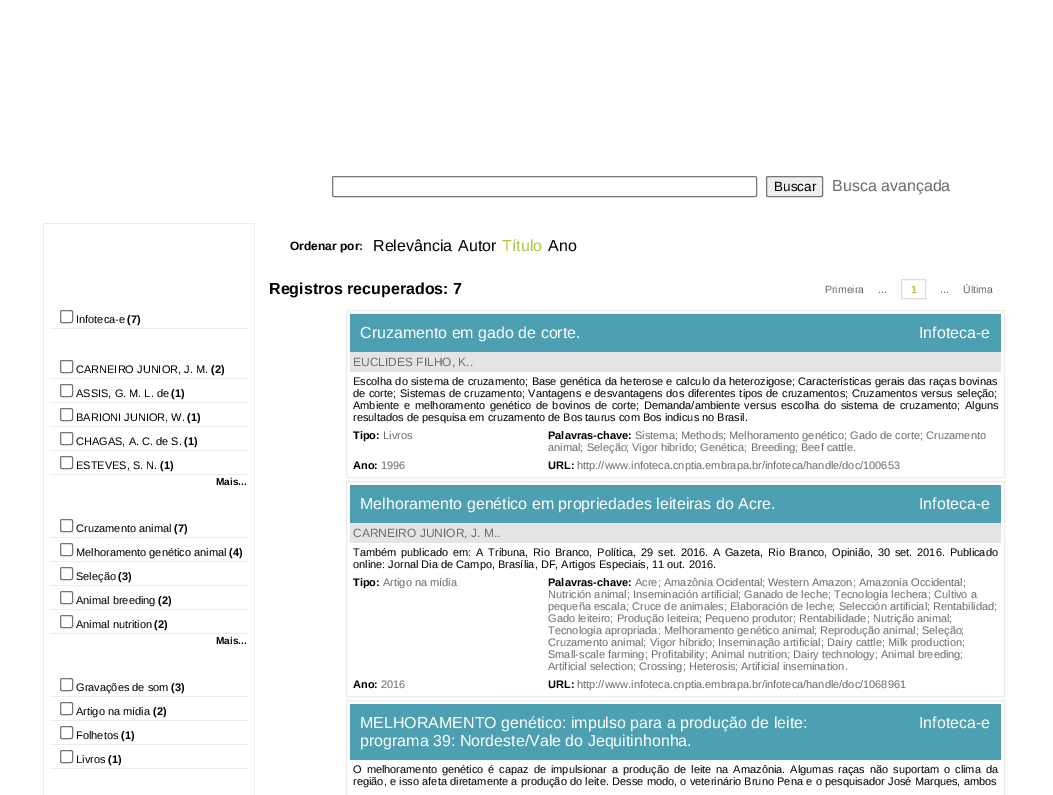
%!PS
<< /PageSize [1053 795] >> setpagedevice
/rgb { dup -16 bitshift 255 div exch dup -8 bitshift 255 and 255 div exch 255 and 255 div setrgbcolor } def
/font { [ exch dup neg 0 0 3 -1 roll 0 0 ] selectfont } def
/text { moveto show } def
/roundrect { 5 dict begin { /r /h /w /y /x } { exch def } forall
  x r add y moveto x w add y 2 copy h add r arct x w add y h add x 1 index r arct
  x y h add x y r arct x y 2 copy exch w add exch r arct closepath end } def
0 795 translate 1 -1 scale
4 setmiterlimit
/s1 { /LiberationSans-Regular 13.5 font 16#000000 rgb } def
/s2 { /LiberationSans-Regular 16 font 16#6C6C6C rgb } def
/s3 { /LiberationSans-Regular 11 font 16#000000 rgb } def
/s4 { /LiberationSans-Bold 11 font 16#000000 rgb } def
/s5 { /LiberationSans-Bold 10 font 16#000000 rgb } def
/s6 { /LiberationSans-Bold 12 font 16#000000 rgb } def
/s7 { /LiberationSans-Regular 16 font 16#000000 rgb } def
/s8 { /LiberationSans-Regular 16 font 16#A6CA44 rgb } def
/s9 { /LiberationSans-Bold 16 font 16#000000 rgb } def
/s10 { /LiberationSans-Regular 10.5 font 16#666666 rgb } def
/s11 { /LiberationSans-Bold 10.5 font 16#A6CA44 rgb } def
/s12 { /LiberationSans-Regular 16 font 16#FFFFFF rgb } def
/s13 { /LiberationSans-Regular 12 font 16#6C6C6C rgb } def
/s14 { /LiberationSans-Regular 11 font 16#6C6C6C rgb } def
/s15 { /LiberationSans-Regular 11 font 16#666666 rgb } def
16#FFFFFF rgb
0 0 1053 795 rectfill
16#767676 rgb
332.5 176.5 424 20 1.5 roundrect stroke
16#EFEFEF rgb
766.5 176.5 56 20 1.5 roundrect gsave fill grestore
16#767676 rgb
stroke
s1
(Buscar) 774 191 text
s2
(Busca avançada) 832 191 text
16#ECECEC rgb
43 223 212 572 rectfill
16#FFFFFF rgb
44 224 210 571 rectfill
16#ECECEC rgb
50 328 198 1 rectfill
16#767676 rgb
60.5 310.5 12 12 1.5 roundrect stroke
s3
(Infoteca-e) 76 323 text
s4
(\(7\)) 127 323 text
16#ECECEC rgb
50 378 198 1 rectfill
16#767676 rgb
60.5 360.5 12 12 1.5 roundrect stroke
s3
(CARNEIRO JUNIOR, J. M.) 76 373 text
s4
(\(2\)) 211 373 text
16#ECECEC rgb
50 402 198 1 rectfill
16#767676 rgb
60.5 384.5 12 12 1.5 roundrect stroke
s3
(ASSIS, G. M. L. de) 76 397 text
s4
(\(1\)) 171 397 text
16#ECECEC rgb
50 426 198 1 rectfill
16#767676 rgb
60.5 408.5 12 12 1.5 roundrect stroke
s3
(BARIONI JUNIOR, W.) 76 421 text
s4
(\(1\)) 187 421 text
16#ECECEC rgb
50 450 198 1 rectfill
16#767676 rgb
60.5 432.5 12 12 1.5 roundrect stroke
s3
(CHAGAS, A. C. de S.) 76 445 text
s4
(\(1\)) 184 445 text
16#ECECEC rgb
50 474 198 1 rectfill
16#767676 rgb
60.5 456.5 12 12 1.5 roundrect stroke
s3
(ESTEVES, S. N.) 76 469 text
s4
(\(1\)) 160 469 text
s5
(Mais...) 216 485 text
16#ECECEC rgb
50 537 198 1 rectfill
16#767676 rgb
60.5 519.5 12 12 1.5 roundrect stroke
s3
(Cruzamento animal) 76 532 text
s4
(\(7\)) 174 532 text
16#ECECEC rgb
50 561 198 1 rectfill
16#767676 rgb
60.5 543.5 12 12 1.5 roundrect stroke
s3
(Melhoramento genético animal) 76 556 text
s4
(\(4\)) 229 556 text
16#ECECEC rgb
50 585 198 1 rectfill
16#767676 rgb
60.5 567.5 12 12 1.5 roundrect stroke
s3
(Seleção) 76 580 text
s4
(\(3\)) 118 580 text
16#ECECEC rgb
50 609 198 1 rectfill
16#767676 rgb
60.5 591.5 12 12 1.5 roundrect stroke
s3
(Animal breeding) 76 604 text
s4
(\(2\)) 158 604 text
16#ECECEC rgb
50 633 198 1 rectfill
16#767676 rgb
60.5 615.5 12 12 1.5 roundrect stroke
s3
(Animal nutrition) 76 628 text
s4
(\(2\)) 154 628 text
s5
(Mais...) 216 644 text
16#ECECEC rgb
50 696 198 1 rectfill
16#767676 rgb
60.5 678.5 12 12 1.5 roundrect stroke
s3
(Gravações de som) 76 691 text
s4
(\(3\)) 171 691 text
16#ECECEC rgb
50 720 198 1 rectfill
16#767676 rgb
60.5 702.5 12 12 1.5 roundrect stroke
s3
(Artigo na mídia) 76 715 text
s4
(\(2\)) 153 715 text
16#ECECEC rgb
50 744 198 1 rectfill
16#767676 rgb
60.5 726.5 12 12 1.5 roundrect stroke
s3
(Folhetos) 76 739 text
s4
(\(1\)) 121 739 text
16#ECECEC rgb
50 768 198 1 rectfill
16#767676 rgb
60.5 750.5 12 12 1.5 roundrect stroke
s3
(Livros) 76 763 text
s4
(\(1\)) 108 763 text
s6
(Ordenar por:) 290 250 text
s7
(Relevância) 373 251 text
(Autor) 458 251 text
s8
(Título) 502 251 text
s7
(Ano) 548 251 text
s9
(Registros recuperados: 7) 269 294 text
s10
(Primeira) 825 293 text
(...) 878 293 text
16#DDDDDD rgb
901.5 279.5 24 19 rectstroke
s11
(1) 911 293 text
s10
(...) 940 293 text
(Última) 963 293 text
16#ECECEC rgb
346.5 310.5 658 167 rectstroke
16#4DA0B2 rgb
350 314 651 38 rectfill
s12
(Cruzamento em gado de corte.) 360 338 text
(Infoteca-e) 919 338 text
16#E4E4E4 rgb
350 352 651 20 rectfill
s13
(EUCLIDES FILHO, K..) 353 366 text
/LiberationSans-Regular 11 font
16#000000 rgb
353 385 moveto 0.25 0 32 (Escolha do sistema de cruzamento; Base genética da heterose e calculo da heterozigose; Características gerais das raças bovinas) widthshow
353 397 moveto 0.5 0 32 (de corte; Sistemas de cruzamento; Vantagens e desvantagens dos diferentes tipos de cruzamentos; Cruzamentos versus seleção;) widthshow
353 409 moveto 1.5 0 32 (Ambiente e melhoramento genético de bovinos de corte; Demanda/ambiente versus escolha do sistema de cruzamento; Alguns) widthshow
(resultados de pesquisa em cruzamento de Bos taurus com Bos indicus no Brasil.) 353 421 text
s4
(Tipo:) 353 439 text
s14
(Livros) 383 439 text
s4
(Palavras-chave:) 548 439 text
s14
(Sistema) 635 439 text
s15
(;) 675 439 text
s14
(Methods) 681 439 text
s15
(;) 723 439 text
s14
(Melhoramento genético) 729 439 text
s15
(;) 844 439 text
s14
(Gado de corte) 850 439 text
s15
(;) 920 439 text
s14
(Cruzamento) 926 439 text
(animal) 548 451 text
s15
(;) 580 451 text
s14
(Seleção) 587 451 text
s15
(;) 626 451 text
s14
(Vigor hibrido) 632 451 text
s15
(;) 694 451 text
s14
(Genética) 700 451 text
s15
(;) 744 451 text
s14
(Breeding) 751 451 text
s15
(;) 795 451 text
s14
(Beef cattle) 801 451 text
s15
(.) 853 451 text
s4
(Ano:) 353 469 text
s14
(1996) 381 469 text
s4
(URL:) 548 469 text
s14
(http://www.infoteca.cnptia.embrapa.br/infoteca/handle/doc/100653) 577 469 text
16#ECECEC rgb
346.5 481.5 658 215 rectstroke
16#4DA0B2 rgb
350 485 651 38 rectfill
s12
(Melhoramento genético em propriedades leiteiras do Acre.) 360 509 text
(Infoteca-e) 919 509 text
16#E4E4E4 rgb
350 523 651 20 rectfill
s13
(CARNEIRO JUNIOR, J. M..) 353 537 text
/LiberationSans-Regular 11 font
16#000000 rgb
353 556 moveto 1.7 0 32 (Também publicado em: A Tribuna, Rio Branco, Política, 29 set. 2016. A Gazeta, Rio Branco, Opinião, 30 set. 2016. Publicado) widthshow
(online: Jornal Dia de Campo, Brasília, DF, Artigos Especiais, 11 out. 2016.) 353 568 text
s4
(Tipo:) 353 586 text
s14
(Artigo na mídia) 383 586 text
s4
(Palavras-chave:) 548 586 text
s14
(Acre) 635 586 text
s15
(;) 658 586 text
s14
(Amazônia Ocidental) 664 586 text
s15
(;) 762 586 text
s14
(Western Amazon) 768 586 text
s15
(;) 853 586 text
s14
(Amazonia Occidental) 859 586 text
s15
(;) 963 586 text
s14
(Nutrición animal) 548 598 text
s15
(;) 627 598 text
s14
(Inseminación artificial) 633 598 text
s15
(;) 738 598 text
s14
(Ganado de leche) 744 598 text
s15
(;) 828 598 text
s14
(Tecnología lechera) 834 598 text
s15
(;) 928 598 text
s14
(Cultivo a) 934 598 text
(pequeña escala) 548 610 text
s15
(;) 626 610 text
s14
(Cruce de animales) 632 610 text
s15
(;) 724 610 text
s14
(Elaboración de leche) 730 610 text
s15
(;) 832 610 text
s14
(Selección artificial) 839 610 text
s15
(;) 927 610 text
s14
(Rentabilidad) 933 610 text
s15
(;) 994 610 text
s14
(Gado leiteiro) 548 622 text
s15
(;) 610 622 text
s14
(Produção leiteira) 617 622 text
s15
(;) 699 622 text
s14
(Pequeno produtor) 705 622 text
s15
(;) 793 622 text
s14
(Rentabilidade) 799 622 text
s15
(;) 867 622 text
s14
(Nutrição animal) 873 622 text
s15
(;) 949 622 text
s14
(Tecnologia apropriada) 548 634 text
s15
(;) 658 634 text
s14
(Melhoramento genético animal) 664 634 text
s15
(;) 814 634 text
s14
(Reprodução animal) 820 634 text
s15
(;) 916 634 text
s14
(Seleção) 922 634 text
s15
(;) 961 634 text
s14
(Cruzamento animal) 548 646 text
s15
(;) 643 646 text
s14
(Vigor híbrido) 650 646 text
s15
(;) 712 646 text
s14
(Inseminação artificial) 718 646 text
s15
(;) 821 646 text
s14
(Dairy cattle) 827 646 text
s15
(;) 882 646 text
s14
(Milk production) 888 646 text
s15
(;) 962 646 text
s14
(Small-scale farming) 548 658 text
s15
(;) 645 658 text
s14
(Profitability) 651 658 text
s15
(;) 705 658 text
s14
(Animal nutrition) 711 658 text
s15
(;) 787 658 text
s14
(Dairy technology) 793 658 text
s15
(;) 875 658 text
s14
(Animal breeding) 881 658 text
s15
(;) 960 658 text
s14
(Artificial selection) 548 670 text
s15
(;) 633 670 text
s14
(Crossing) 639 670 text
s15
(;) 683 670 text
s14
(Heterosis) 689 670 text
s15
(;) 735 670 text
s14
(Artificial insemination) 741 670 text
s15
(.) 845 670 text
s4
(Ano:) 353 688 text
s14
(2016) 381 688 text
s4
(URL:) 548 688 text
s14
(http://www.infoteca.cnptia.embrapa.br/infoteca/handle/doc/1068961) 577 688 text
16#ECECEC rgb
346.5 700.5 658 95 rectstroke
16#4DA0B2 rgb
350 704 651 56 rectfill
s12
(MELHORAMENTO genético: impulso para a produção de leite:) 360 728 text
(programa 39: Nordeste/Vale do Jequitinhonha.) 360 746 text
(Infoteca-e) 919 728 text
/LiberationSans-Regular 11 font
16#000000 rgb
353 773 moveto 1.9 0 32 (O melhoramento genético é capaz de impulsionar a produção de leite na Amazônia. Algumas raças não suportam o clima da) widthshow
353 785 moveto 0.25 0 32 (região, e isso afeta diretamente a produção do leite. Desse modo, o veterinário Bruno Pena e o pesquisador José Marques, ambos) widthshow
showpage
